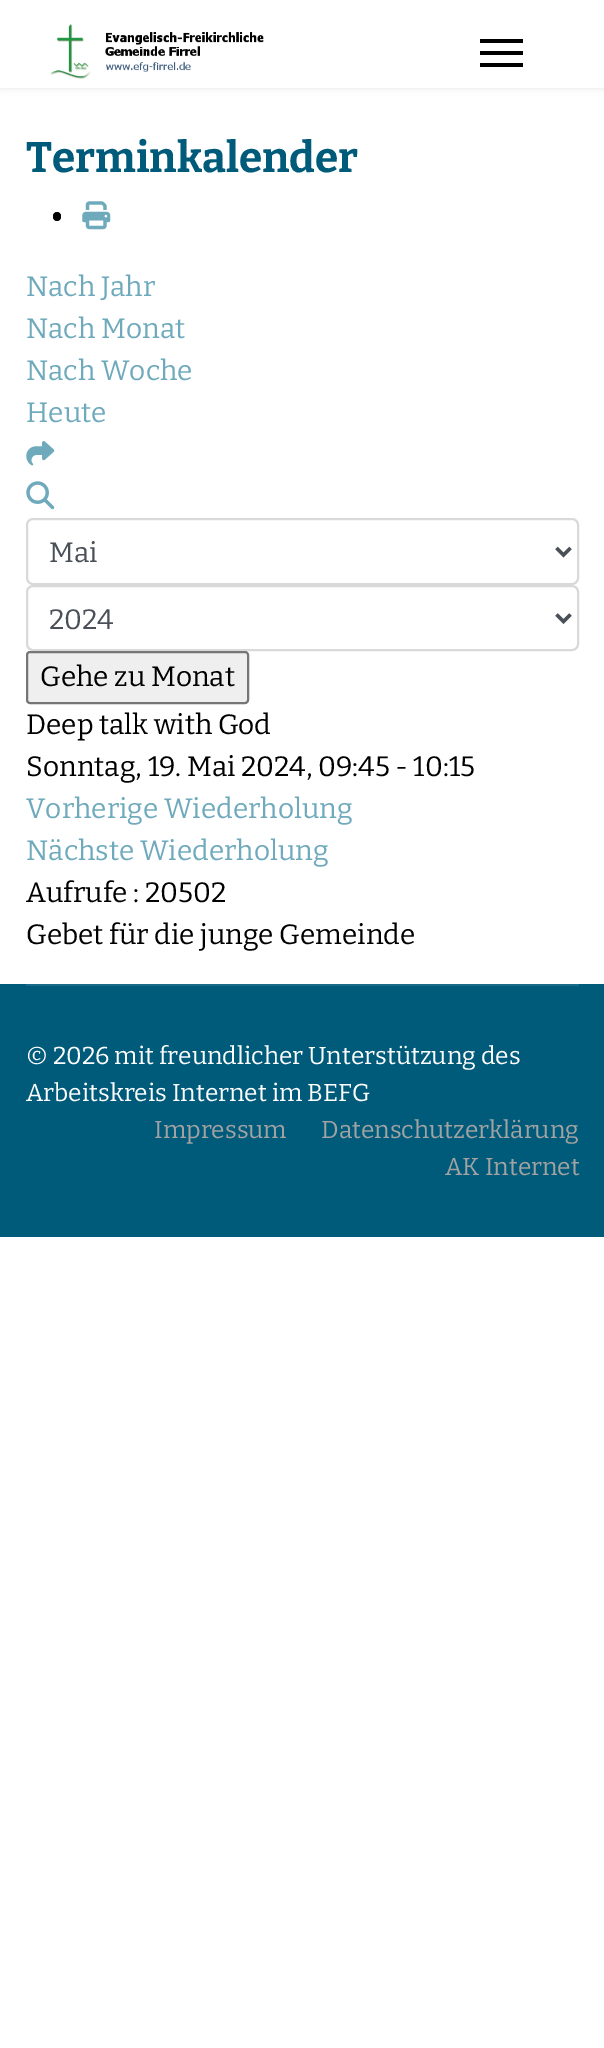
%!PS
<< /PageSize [604 2048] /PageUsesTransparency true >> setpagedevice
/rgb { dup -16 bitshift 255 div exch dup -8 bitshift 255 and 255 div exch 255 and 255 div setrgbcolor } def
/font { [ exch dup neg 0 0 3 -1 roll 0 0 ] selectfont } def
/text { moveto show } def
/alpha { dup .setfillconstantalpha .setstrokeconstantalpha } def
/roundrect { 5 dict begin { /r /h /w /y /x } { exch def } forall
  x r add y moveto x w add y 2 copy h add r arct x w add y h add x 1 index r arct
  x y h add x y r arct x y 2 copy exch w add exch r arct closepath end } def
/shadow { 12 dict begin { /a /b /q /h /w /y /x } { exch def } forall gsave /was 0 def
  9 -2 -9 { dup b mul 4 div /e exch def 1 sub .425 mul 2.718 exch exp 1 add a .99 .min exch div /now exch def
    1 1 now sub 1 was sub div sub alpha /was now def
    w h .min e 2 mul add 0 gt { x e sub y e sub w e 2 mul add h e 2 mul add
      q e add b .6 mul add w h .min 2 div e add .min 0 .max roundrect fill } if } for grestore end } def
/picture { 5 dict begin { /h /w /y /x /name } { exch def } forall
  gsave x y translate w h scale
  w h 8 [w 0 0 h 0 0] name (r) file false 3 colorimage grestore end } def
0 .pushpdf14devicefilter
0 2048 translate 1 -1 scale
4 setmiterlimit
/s1 { /Bitter-Thin 42.5 font 16#005A7A rgb } def
/s2 { /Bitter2-Thin 28 font 16#6FAABC rgb } def
/s3 { /Bitter2-Thin 28 font 16#495057 rgb } def
/s4 { /Bitter2-Thin 28 font 16#000000 rgb } def
/s5 { /Bitter2-Thin 24.5 font 16#FFFFFF rgb } def
/s6 { /Bitter2-Thin 24.5 font 16#A2A2A2 rgb } def
16#FFFFFF rgb
0 0 604 2048 rectfill
16#000000 rgb
0 0 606 88 0 3.5 0.1 shadow
16#FFFFFF rgb
0 0 604 88 rectfill
(pic1.raw) 50 24 214 55 picture
16#000000 rgb
480 39 43 4 rectfill
480 51 43 4 rectfill
480 63 43 4 rectfill
s1
(Terminkalender) 26 172 text
16#000000 rgb
53 212 8 9 4 roundrect fill
(pic2.raw) 82 201 29 29 picture
s2
(Nach Jahr) 26 296 text
(Nach Monat) 26 338 text
(Nach Woche) 26 380 text
(Heute) 26 422 text
(pic3.raw) 26 441 29 25 picture
(pic4.raw) 26 481 29 29 picture
16#D9D9D9 rgb
2 setlinewidth
27 519 551 65 6 roundrect stroke
16#495057 rgb
3.5 setlinewidth
556.5 548 moveto 563.5 555 lineto 570.5 548 lineto stroke
(Mai) 49 562 text
16#D9D9D9 rgb
2 setlinewidth
27 586 551 64 6 roundrect stroke
16#495057 rgb
3.5 setlinewidth
556.5 614.5 moveto 563.5 621.5 lineto 570.5 614.5 lineto stroke
(2024) 49 629 text
16#EFEFEF rgb
27 652 221 51 3 roundrect gsave fill grestore
16#767676 rgb
2 setlinewidth
stroke
s4
(Gehe zu Monat) 40 686 text
(Deep talk with God) 26 734 text
(Sonntag, 19. Mai 2024, 09:45 - 10:15) 26 776 text
s2
(Vorherige Wiederholung) 26 818 text
(Nächste Wiederholung) 26 860 text
s4
(Aufrufe : 20502) 26 902 text
(Gebet für die junge Gemeinde) 26 944 text
16#005A7A rgb
0 984 604 253 rectfill
16#1A6B87 rgb
26 984 553 2 rectfill
s5
(© 2026 mit freundlicher Unterstützung des) 26 1064 text
(Arbeitskreis Internet im BEFG) 26 1101 text
s6
(Impressum) 154 1138 text
(Datenschutzerklärung) 321 1138 text
(AK Internet) 445 1175 text
.poppdf14devicefilter showpage
